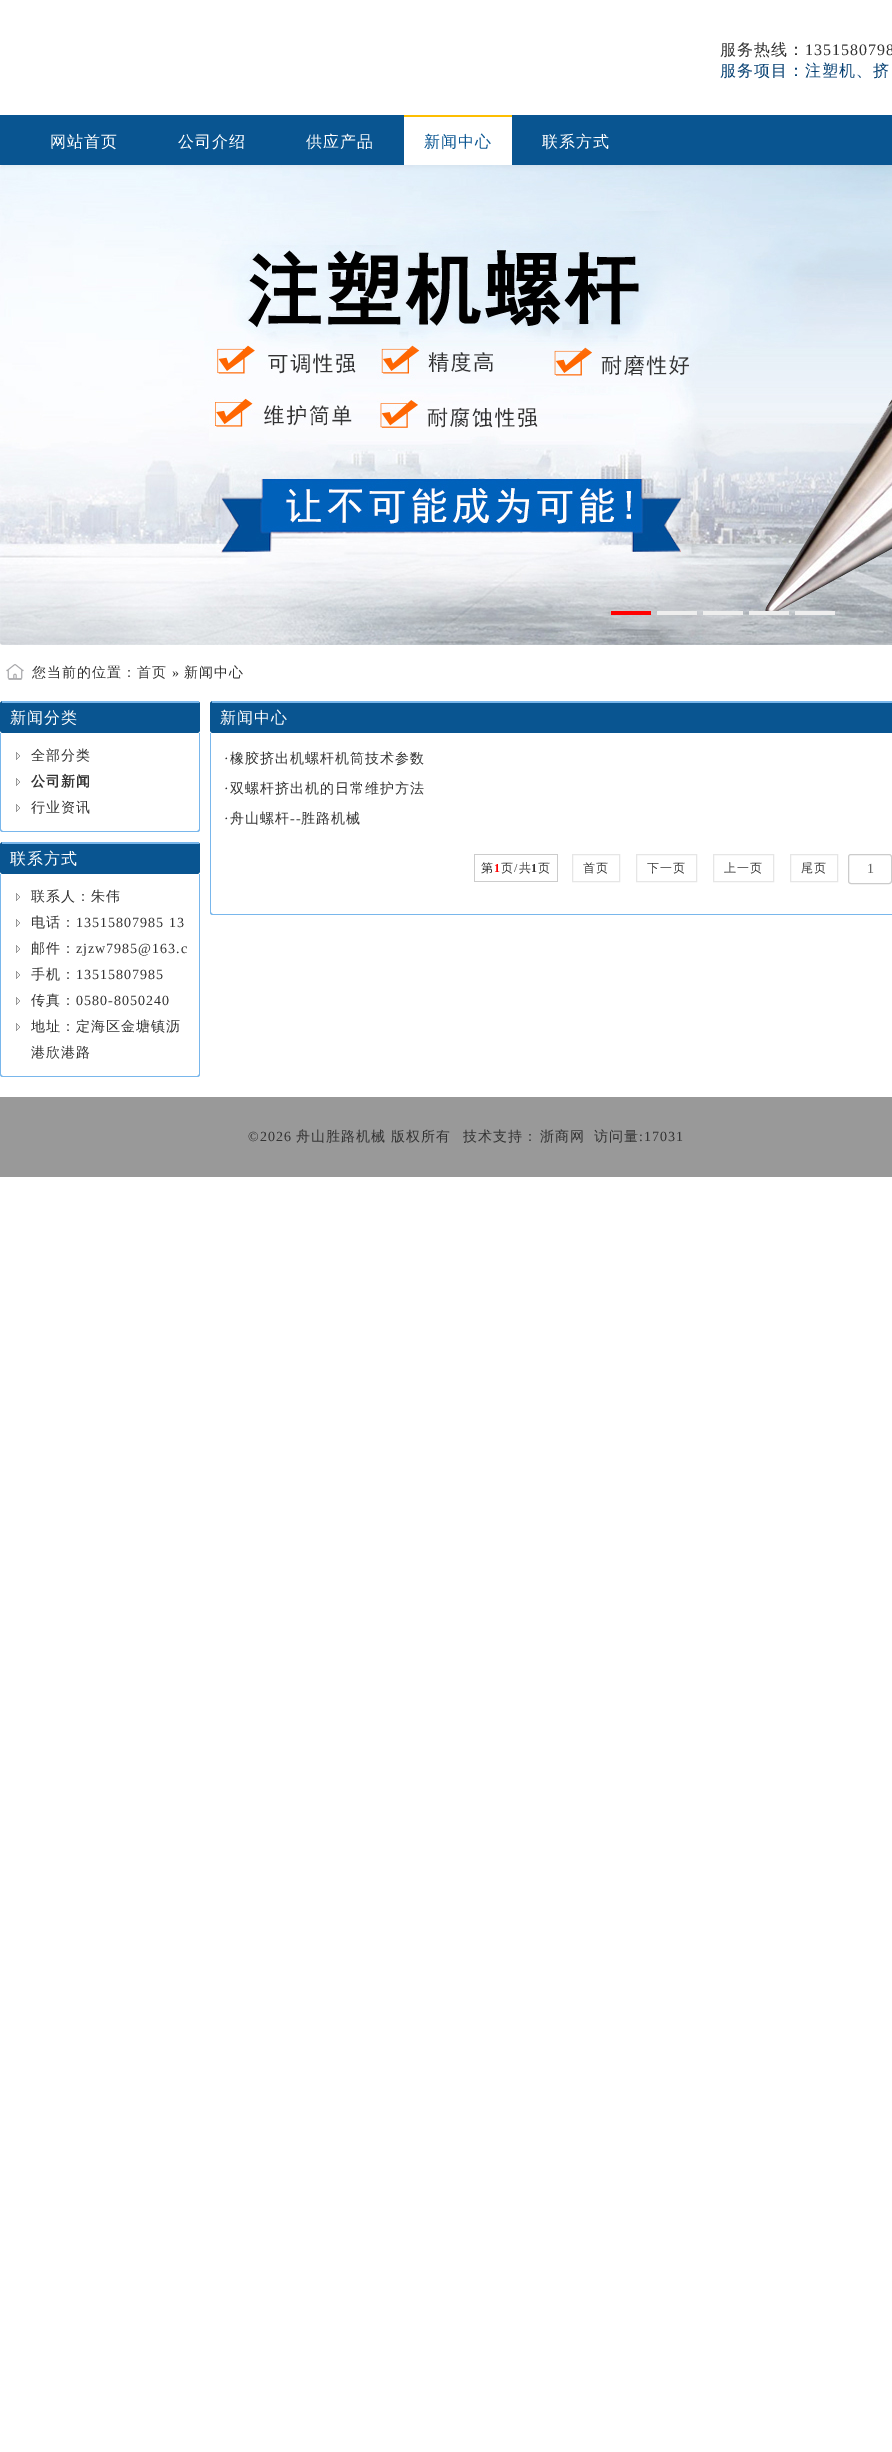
%!PS
<< /PageSize [892 2452] >> setpagedevice
/rgb { dup -16 bitshift 255 div exch dup -8 bitshift 255 and 255 div exch 255 and 255 div setrgbcolor } def
/font { [ exch dup neg 0 0 3 -1 roll 0 0 ] selectfont } def
/text { moveto show } def
/roundrect { 5 dict begin { /r /h /w /y /x } { exch def } forall
  x r add y moveto x w add y 2 copy h add r arct x w add y h add x 1 index r arct
  x y h add x y r arct x y 2 copy exch w add exch r arct closepath end } def
/picture { 5 dict begin { /h /w /y /x /name } { exch def } forall
  gsave x y translate w h scale
  w h 8 [w 0 0 h 0 0] name (r) file false 3 colorimage grestore end } def
0 2452 translate 1 -1 scale
4 setmiterlimit
/s1 { /LiberationSerif-Regular 14 font 16#666666 rgb } def
16#FFFFFF rgb
0 0 892 2452 rectfill
/WenQuanYiZenHei-Medium 16 font
16#333333 rgb
720 55 moveto 1 0 (服务热线：) ashow
/LiberationSerif-Regular 16 font
805 55 moveto 1 0 (1351580798) ashow
/WenQuanYiZenHei-Medium 16 font
16#084274 rgb
720 76 moveto 1 0 (服务项目：注塑机、挤) ashow
16#095591 rgb
0 115 892 50 rectfill
16#FFFFFF rgb
50 147 moveto 1 0 (网站首页) ashow
178 147 moveto 1 0 (公司介绍) ashow
306 147 moveto 1 0 (供应产品) ashow
404 117 108 48 rectfill
16#FDBE01 rgb
404 115 108 2 rectfill
16#095591 rgb
424 147 moveto 1 0 (新闻中心) ashow
16#FFFFFF rgb
542 147 moveto 1 0 (联系方式) ashow
16#FAFAFA rgb
0 165 3 480 rectfill
(pic1.raw) 0 165 892 480 picture
16#FF0101 rgb
611 611 40 4 rectfill
16#EEEEEE rgb
657 611 40 4 rectfill
703 611 40 4 rectfill
749 611 40 4 rectfill
795 611 40 4 rectfill
(pic2.raw) 6 664 18 16 picture
/WenQuanYiZenHei-Medium 14 font
16#333333 rgb
32 677 moveto 1 0 (您当前的位置：首页) ashow
/LiberationSerif-Regular 14 font
172 677 moveto 1 0 (») ashow
/WenQuanYiZenHei-Medium 14 font
184 677 moveto 1 0 (新闻中心) ashow
16#095591 rgb
0 701 200 32 3 roundrect fill
16#79B7EC rgb
2 701 197 2 rectfill
/WenQuanYiZenHei-Medium 16 font
16#FFFFFF rgb
10 723 moveto 1 0 (新闻分类) ashow
16#79B7EC rgb
0 733 moveto 200 733 lineto 200 829 lineto 200 831 199 832 197 832 curveto 3 832 lineto 1 832 0 831 0 829 curveto closepath 1 733 moveto 199 733 lineto 199 829 lineto 199 830 198 831 197 831 curveto 3 831 lineto 2 831 1 830 1 829 curveto closepath eofill
(pic3.raw) 16 752 4 8 picture
/WenQuanYiZenHei-Medium 14 font
16#333333 rgb
31 760 moveto 1 0 (全部分类) ashow
(pic3.raw) 16 778 4 8 picture
/WenQuanYiZenHei-Bold 14 font
31 786 moveto 1 0 (公司新闻) ashow
(pic3.raw) 16 804 4 8 picture
/WenQuanYiZenHei-Medium 14 font
31 812 moveto 1 0 (行业资讯) ashow
16#095591 rgb
0 842 200 32 3 roundrect fill
16#79B7EC rgb
2 842 197 2 rectfill
/WenQuanYiZenHei-Medium 16 font
16#FFFFFF rgb
10 864 moveto 1 0 (联系方式) ashow
16#79B7EC rgb
0 874 moveto 200 874 lineto 200 1074 lineto 200 1076 199 1077 197 1077 curveto 3 1077 lineto 1 1077 0 1076 0 1074 curveto closepath 1 874 moveto 199 874 lineto 199 1074 lineto 199 1075 198 1076 197 1076 curveto 3 1076 lineto 2 1076 1 1075 1 1074 curveto closepath eofill
(pic3.raw) 16 893 4 8 picture
/WenQuanYiZenHei-Medium 14 font
16#333333 rgb
31 901 moveto 1 0 (联系人：朱伟) ashow
(pic3.raw) 16 919 4 8 picture
31 927 moveto 1 0 (电话：) ashow
/LiberationSerif-Regular 14 font
76 927 moveto 1 0 (13515807985 13) ashow
(pic3.raw) 16 945 4 8 picture
/WenQuanYiZenHei-Medium 14 font
31 953 moveto 1 0 (邮件：) ashow
/LiberationSerif-Regular 14 font
76 953 moveto 1 0 (zjzw7985@163.c) ashow
(pic3.raw) 16 971 4 8 picture
/WenQuanYiZenHei-Medium 14 font
31 979 moveto 1 0 (手机：) ashow
/LiberationSerif-Regular 14 font
76 979 moveto 1 0 (13515807985) ashow
(pic3.raw) 16 997 4 8 picture
/WenQuanYiZenHei-Medium 14 font
31 1005 moveto 1 0 (传真：) ashow
/LiberationSerif-Regular 14 font
76 1005 moveto 1 0 (0580-8050240) ashow
(pic3.raw) 16 1023 4 8 picture
/WenQuanYiZenHei-Medium 14 font
31 1031 moveto 1 0 (地址：定海区金塘镇沥) ashow
31 1057 moveto 1 0 (港欣港路) ashow
16#095591 rgb
210 701 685 32 3 roundrect fill
16#79B7EC rgb
212 701 680 2 rectfill
/WenQuanYiZenHei-Medium 16 font
16#FFFFFF rgb
220 723 moveto 1 0 (新闻中心) ashow
16#79B7EC rgb
210 733 moveto 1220 733 lineto 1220 912 lineto 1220 914 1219 915 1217 915 curveto 213 915 lineto 211 915 210 914 210 912 curveto closepath 211 733 moveto 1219 733 lineto 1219 912 lineto 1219 913 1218 914 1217 914 curveto 213 914 lineto 212 914 211 913 211 912 curveto closepath eofill
/LiberationSerif-Regular 14 font
16#333333 rgb
224 763 moveto 1 0 (·) ashow
/WenQuanYiZenHei-Medium 14 font
230 763 moveto 1 0 (橡胶挤出机螺杆机筒技术参数) ashow
/LiberationSerif-Regular 14 font
224 793 moveto 1 0 (·) ashow
/WenQuanYiZenHei-Medium 14 font
230 793 moveto 1 0 (双螺杆挤出机的日常维护方法) ashow
/LiberationSerif-Regular 14 font
224 823 moveto 1 0 (·) ashow
/WenQuanYiZenHei-Medium 14 font
230 823 moveto 1 0 (舟山螺杆) ashow
/LiberationSerif-Regular 14 font
290 823 moveto 1 0 (--) ashow
/WenQuanYiZenHei-Medium 14 font
301 823 moveto 1 0 (胜路机械) ashow
/WenQuanYiZenHei-Medium 12 font
481 872 moveto 1 0 (第) ashow
16#CCCCCC rgb
474 854 84 1 rectfill
474 881 64 1 rectfill
474 854 1 28 rectfill
/LiberationSerif-Bold 12 font
16#FF0000 rgb
494 872 moveto 1 0 (1) ashow
/WenQuanYiZenHei-Medium 12 font
16#333333 rgb
501 872 moveto 1 0 (页 共) ashow
538 872 moveto 1 0 (页) ashow
16#CCCCCC rgb
557 854 1 28 rectfill
538 881 20 1 rectfill
16#E6E6E6 rgb
572.5 854.5 47 27 rectstroke
16#333333 rgb
583 872 moveto 1 0 (首页) ashow
16#E6E6E6 rgb
636.5 854.5 60 27 rectstroke
16#333333 rgb
647 872 moveto 1 0 (下一页) ashow
16#E6E6E6 rgb
713.5 854.5 60 27 rectstroke
16#333333 rgb
724 872 moveto 1 0 (上一页) ashow
16#E6E6E6 rgb
790.5 854.5 47 27 rectstroke
16#333333 rgb
801 872 moveto 1 0 (尾页) ashow
16#CCCCCC rgb
848.5 854.5 43 29 2.5 roundrect stroke
s1
(1) 867 873 text
/LiberationSerif-Regular 12 font
16#333333 rgb
514 872 moveto 1 0 (/) ashow
/LiberationSerif-Bold 12 font
531 872 moveto 1 0 (1) ashow
16#999999 rgb
0 1097 892 80 rectfill
/LiberationSerif-Regular 14 font
16#333333 rgb
248 1141 moveto 1 0 (©2026) ashow
/WenQuanYiZenHei-Medium 14 font
296 1141 moveto 1 0 (舟山胜路机械 版权所有) ashow
463 1141 moveto 1 0 (技术支持：) ashow
540 1141 moveto 1 0 (浙商网) ashow
594 1141 moveto 1 0 (访问量) ashow
/LiberationSerif-Regular 14 font
639 1141 moveto 1 0 (:17031) ashow
showpage
